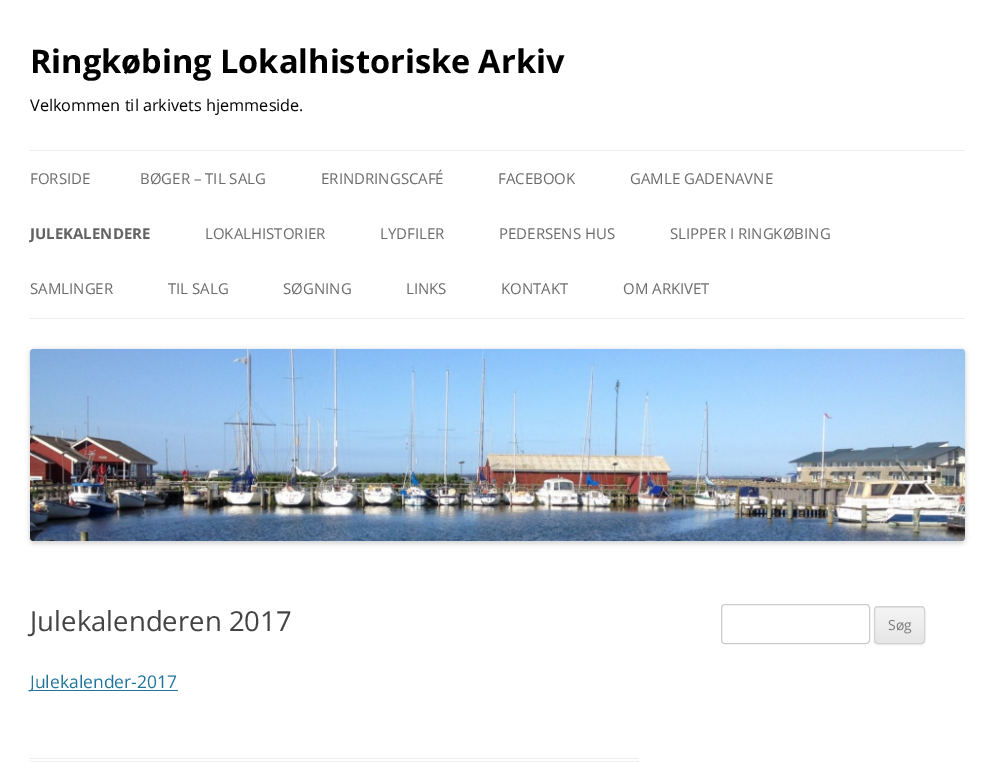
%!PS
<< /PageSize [995 762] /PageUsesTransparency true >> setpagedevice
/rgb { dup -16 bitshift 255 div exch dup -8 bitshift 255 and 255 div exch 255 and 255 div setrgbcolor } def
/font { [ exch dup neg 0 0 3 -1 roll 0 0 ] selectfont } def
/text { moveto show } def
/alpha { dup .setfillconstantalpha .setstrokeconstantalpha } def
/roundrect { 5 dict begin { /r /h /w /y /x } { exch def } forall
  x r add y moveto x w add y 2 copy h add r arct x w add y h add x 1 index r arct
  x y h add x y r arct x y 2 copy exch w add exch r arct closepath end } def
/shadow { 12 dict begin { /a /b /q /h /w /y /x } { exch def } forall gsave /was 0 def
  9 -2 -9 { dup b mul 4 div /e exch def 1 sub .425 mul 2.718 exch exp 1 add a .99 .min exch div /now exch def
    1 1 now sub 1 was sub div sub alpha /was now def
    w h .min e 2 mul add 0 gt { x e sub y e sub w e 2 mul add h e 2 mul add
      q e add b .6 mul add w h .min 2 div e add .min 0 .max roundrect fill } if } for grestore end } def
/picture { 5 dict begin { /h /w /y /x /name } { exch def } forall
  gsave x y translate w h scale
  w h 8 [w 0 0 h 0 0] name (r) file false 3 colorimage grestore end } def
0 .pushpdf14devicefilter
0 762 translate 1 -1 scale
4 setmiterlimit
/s1 { /OpenSans-Bold 32.5 font 16#000000 rgb } def
/s2 { /OpenSans-Regular 16.25 font 16#000000 rgb } def
/s3 { /OpenSans-Regular 15 font 16#6A6A6A rgb } def
/s4 { /OpenSans-Bold 15 font 16#636363 rgb } def
/s5 { /OpenSans-Regular 27.5 font 16#444444 rgb } def
/s6 { /OpenSans-Regular 17.5 font 16#21759B rgb } def
/s7 { /OpenSans-Regular 14 font 16#7C7C7C rgb } def
16#FFFFFF rgb
0 0 995 762 rectfill
s1
(Ringkøbing Lokalhistoriske Arkiv) 30 73 text
s2
(Velkommen til arkivets hjemmeside.) 30 111 text
16#EDEDED rgb
30 150 935 1 rectfill
30 318 935 1 rectfill
s3
(FORSIDE) 30 184 text
(BØGER – TIL SALG) 140 184 text
(ERINDRINGSCAFÉ) 321 184 text
(FACEBOOK) 498 184 text
(GAMLE GADENAVNE) 630 184 text
s4
(JULEKALENDERE) 30 239 text
s3
(LOKALHISTORIER) 205 239 text
(LYDFILER) 380 239 text
(PEDERSENS HUS) 499 239 text
(SLIPPER I RINGKØBING) 670 239 text
(SAMLINGER) 30 294 text
(TIL SALG) 168 294 text
(SØGNING) 283 294 text
(LINKS) 406 294 text
(KONTAKT) 501 294 text
(OM ARKIVET) 623 294 text
16#000000 rgb
30 350 935 193 4 2.5 0.2 shadow
(pic1.raw) 30 348 935 194 picture
16#EDEDED rgb
30 758 609 1 rectfill
30 761 609 1 rectfill
s5
(Julekalenderen 2017) 30 631 text
16#21759B rgb
30 690 148 1 rectfill
s6
(Julekalender-2017) 30 688 text
16#CCCCCC rgb
721.5 604.5 148 39 3.5 roundrect stroke
16#404040 rgb
874 608 51 37 4 1 0.1 shadow
16#E6E6E6 rgb
874 606 51 38 4 roundrect fill
gsave
874 606 51 38 4 roundrect clip newpath
gsave 874 608 moveto 925 608 lineto 925 643 lineto 874 643 lineto closepath clip newpath
<< /ShadingType 2 /ColorSpace /DeviceRGB /Coords [899 608 899 643] /Extend [true true] /Function << /FunctionType 2 /Domain [0 1] /C0 [0.957 0.957 0.957] /C1 [0.902 0.902 0.902] /N 1 >> >> shfill grestore
grestore
16#D2D2D2 rgb
874.5 606.5 50 37 3.5 roundrect stroke
s7
(Søg) 888 630 text
.poppdf14devicefilter showpage
